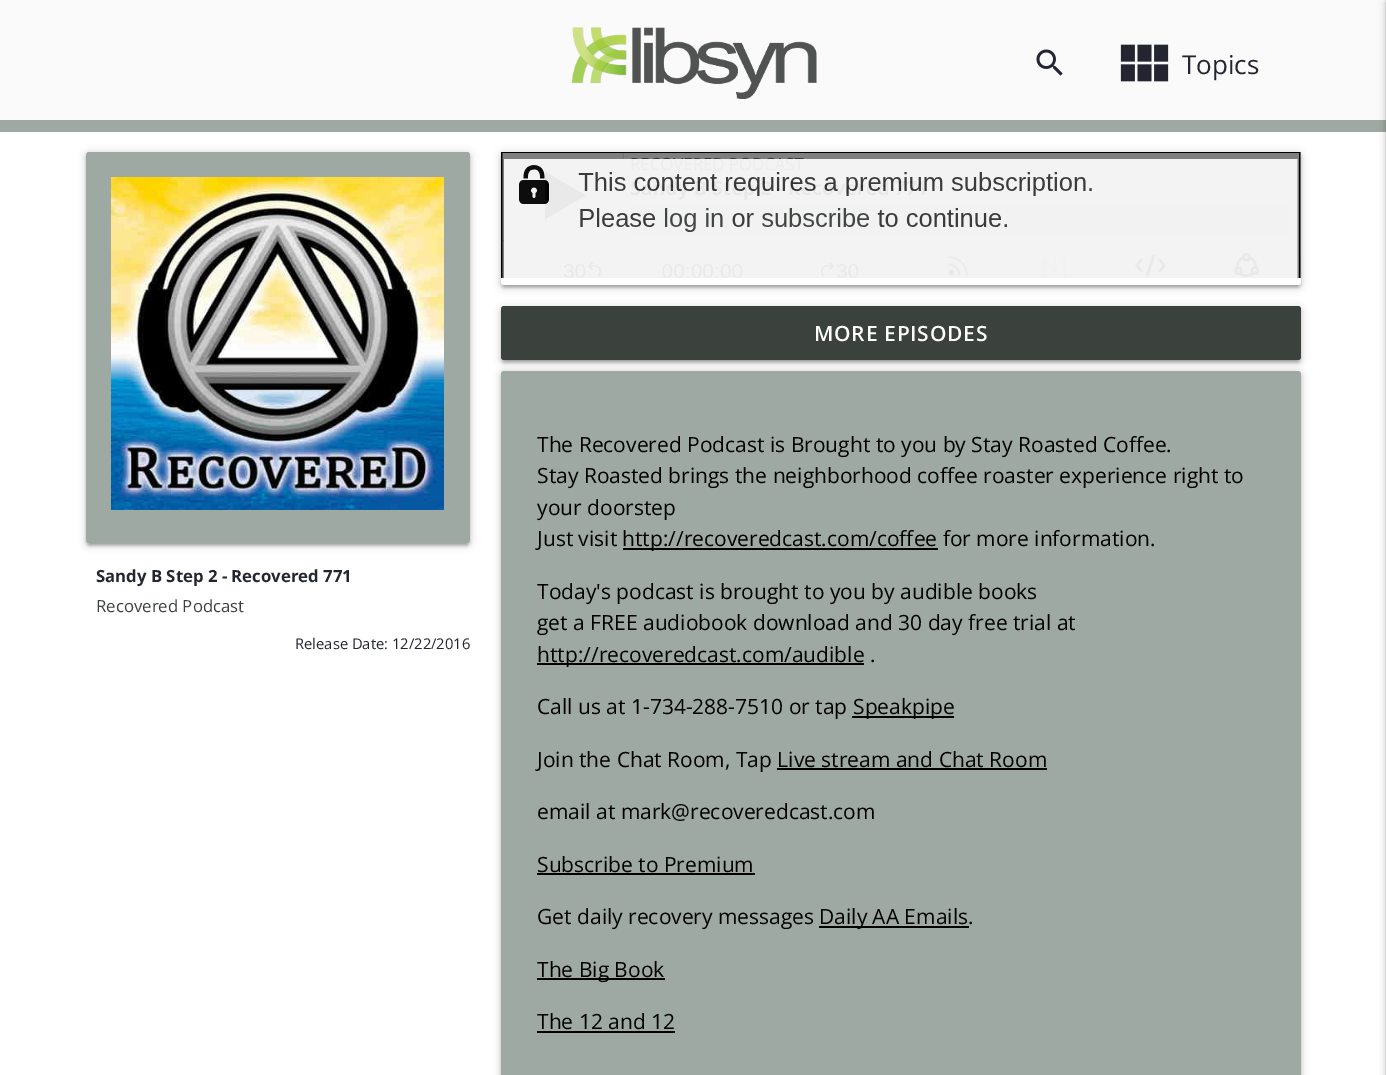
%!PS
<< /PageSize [1386 1075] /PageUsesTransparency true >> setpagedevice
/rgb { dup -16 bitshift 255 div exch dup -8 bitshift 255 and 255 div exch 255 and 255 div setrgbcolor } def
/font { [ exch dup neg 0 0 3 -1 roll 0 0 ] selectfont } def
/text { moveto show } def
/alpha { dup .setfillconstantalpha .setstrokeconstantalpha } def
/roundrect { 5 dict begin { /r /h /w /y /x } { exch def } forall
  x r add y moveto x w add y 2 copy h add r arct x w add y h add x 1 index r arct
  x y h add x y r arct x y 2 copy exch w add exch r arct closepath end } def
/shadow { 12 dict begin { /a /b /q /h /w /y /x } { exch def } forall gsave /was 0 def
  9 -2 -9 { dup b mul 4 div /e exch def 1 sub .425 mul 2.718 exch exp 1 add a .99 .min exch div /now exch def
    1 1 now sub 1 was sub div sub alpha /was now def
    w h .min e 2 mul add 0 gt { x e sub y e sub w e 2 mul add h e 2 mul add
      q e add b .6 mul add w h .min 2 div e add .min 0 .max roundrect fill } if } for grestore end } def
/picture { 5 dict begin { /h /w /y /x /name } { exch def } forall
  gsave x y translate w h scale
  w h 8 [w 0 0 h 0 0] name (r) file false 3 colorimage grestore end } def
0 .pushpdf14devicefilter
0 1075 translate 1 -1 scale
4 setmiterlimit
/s1 { /OpenSans-Regular 26 font 16#232530 rgb } def
/s2 { /OpenSans-Bold 16.75 font 16#232530 rgb } def
/s3 { /OpenSans-Regular 16.75 font 16#3B413D rgb } def
/s4 { /OpenSans-Regular 14.75 font 16#232530 rgb } def
/s5 { /OpenSans-Regular 21 font 16#000000 rgb } def
16#FFFFFF rgb
0 0 1386 1075 rectfill
16#FAFAFA rgb
0 0 1386 120 rectfill
(pic1.raw) 571 27 246 72 picture
(pic2.raw) 1036 49 27 27 picture
(pic3.raw) 1120 44 49 38 picture
s1
(Topics) 1182 74 text
16#9FA9A3 rgb
0 120 1386 12 rectfill
16#000000 rgb
1386 2 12 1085 0 4 0.2 shadow
1386 3 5 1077 0 1.5 0.14 shadow
501 153 800 134 3 4 0.2 shadow
504 159 794 128 0 1 0.12 shadow
501 155 800 133 3 1.5 0.14 shadow
16#FFFFFF rgb
501 152 800 133 3 roundrect fill
(pic4.raw) 501 152 800 126 picture
16#000000 rgb
501 308 800 54 3 4 0.2 shadow
504 314 794 48 0 1 0.12 shadow
501 309 800 54 3 1.5 0.14 shadow
16#3B413D rgb
501 306 800 54 3 roundrect fill
/OpenSans-SemiBold 21 font
16#FFFFFF rgb
814 341 moveto 0.75 0 (MORE EPISODES) ashow
16#000000 rgb
86 153 384 392 3 4 0.2 shadow
89 159 378 386 0 1 0.12 shadow
86 155 384 391 3 1.5 0.14 shadow
16#9FA9A3 rgb
86 152 384 391 3 roundrect fill
(pic5.raw) 111 177 333 333 picture
s2
(Sandy B Step 2 - Recovered 771) 96 582 text
s3
(Recovered Podcast) 96 612 text
s4
(Release Date: 12/22/2016) 295 649 text
16#000000 rgb
501 372 800 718 3 4 0.2 shadow
501 374 800 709 3 1.5 0.14 shadow
16#9FA9A3 rgb
501 371 800 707 3 roundrect fill
s5
(The Recovered Podcast is Brought to you by Stay Roasted Coffee.) 537 452 text
(Stay Roasted brings the neighborhood coffee roaster experience right to) 537 483 text
(your doorstep) 537 515 text
(Just visit) 537 546 text
623 548 315 2 rectfill
(http://recoveredcast.com/coffee for more information.) 622 546 text
(Today's podcast is brought to you by audible books) 537 599 text
(get a FREE audiobook download and 30 day free trial at) 537 630 text
537 663 327 2 rectfill
(http://recoveredcast.com/audible .) 537 662 text
(Call us at 1-734-288-7510 or tap) 537 714 text
852 716 102 2 rectfill
(Speakpipe) 853 714 text
(Join the Chat Room, Tap Live stream and Chat Room) 537 767 text
777 768 270 2 rectfill
(email at mark@recoveredcast.com) 537 819 text
(Subscribe to Premium) 537 872 text
537 873 218 2 rectfill
(Get daily recovery messages) 537 924 text
819 926 150 2 rectfill
(Daily AA Emails.) 819 924 text
537 978 128 2 rectfill
(The Big Book) 537 977 text
(The 12 and 12) 537 1029 text
537 1031 138 2 rectfill
.poppdf14devicefilter showpage
